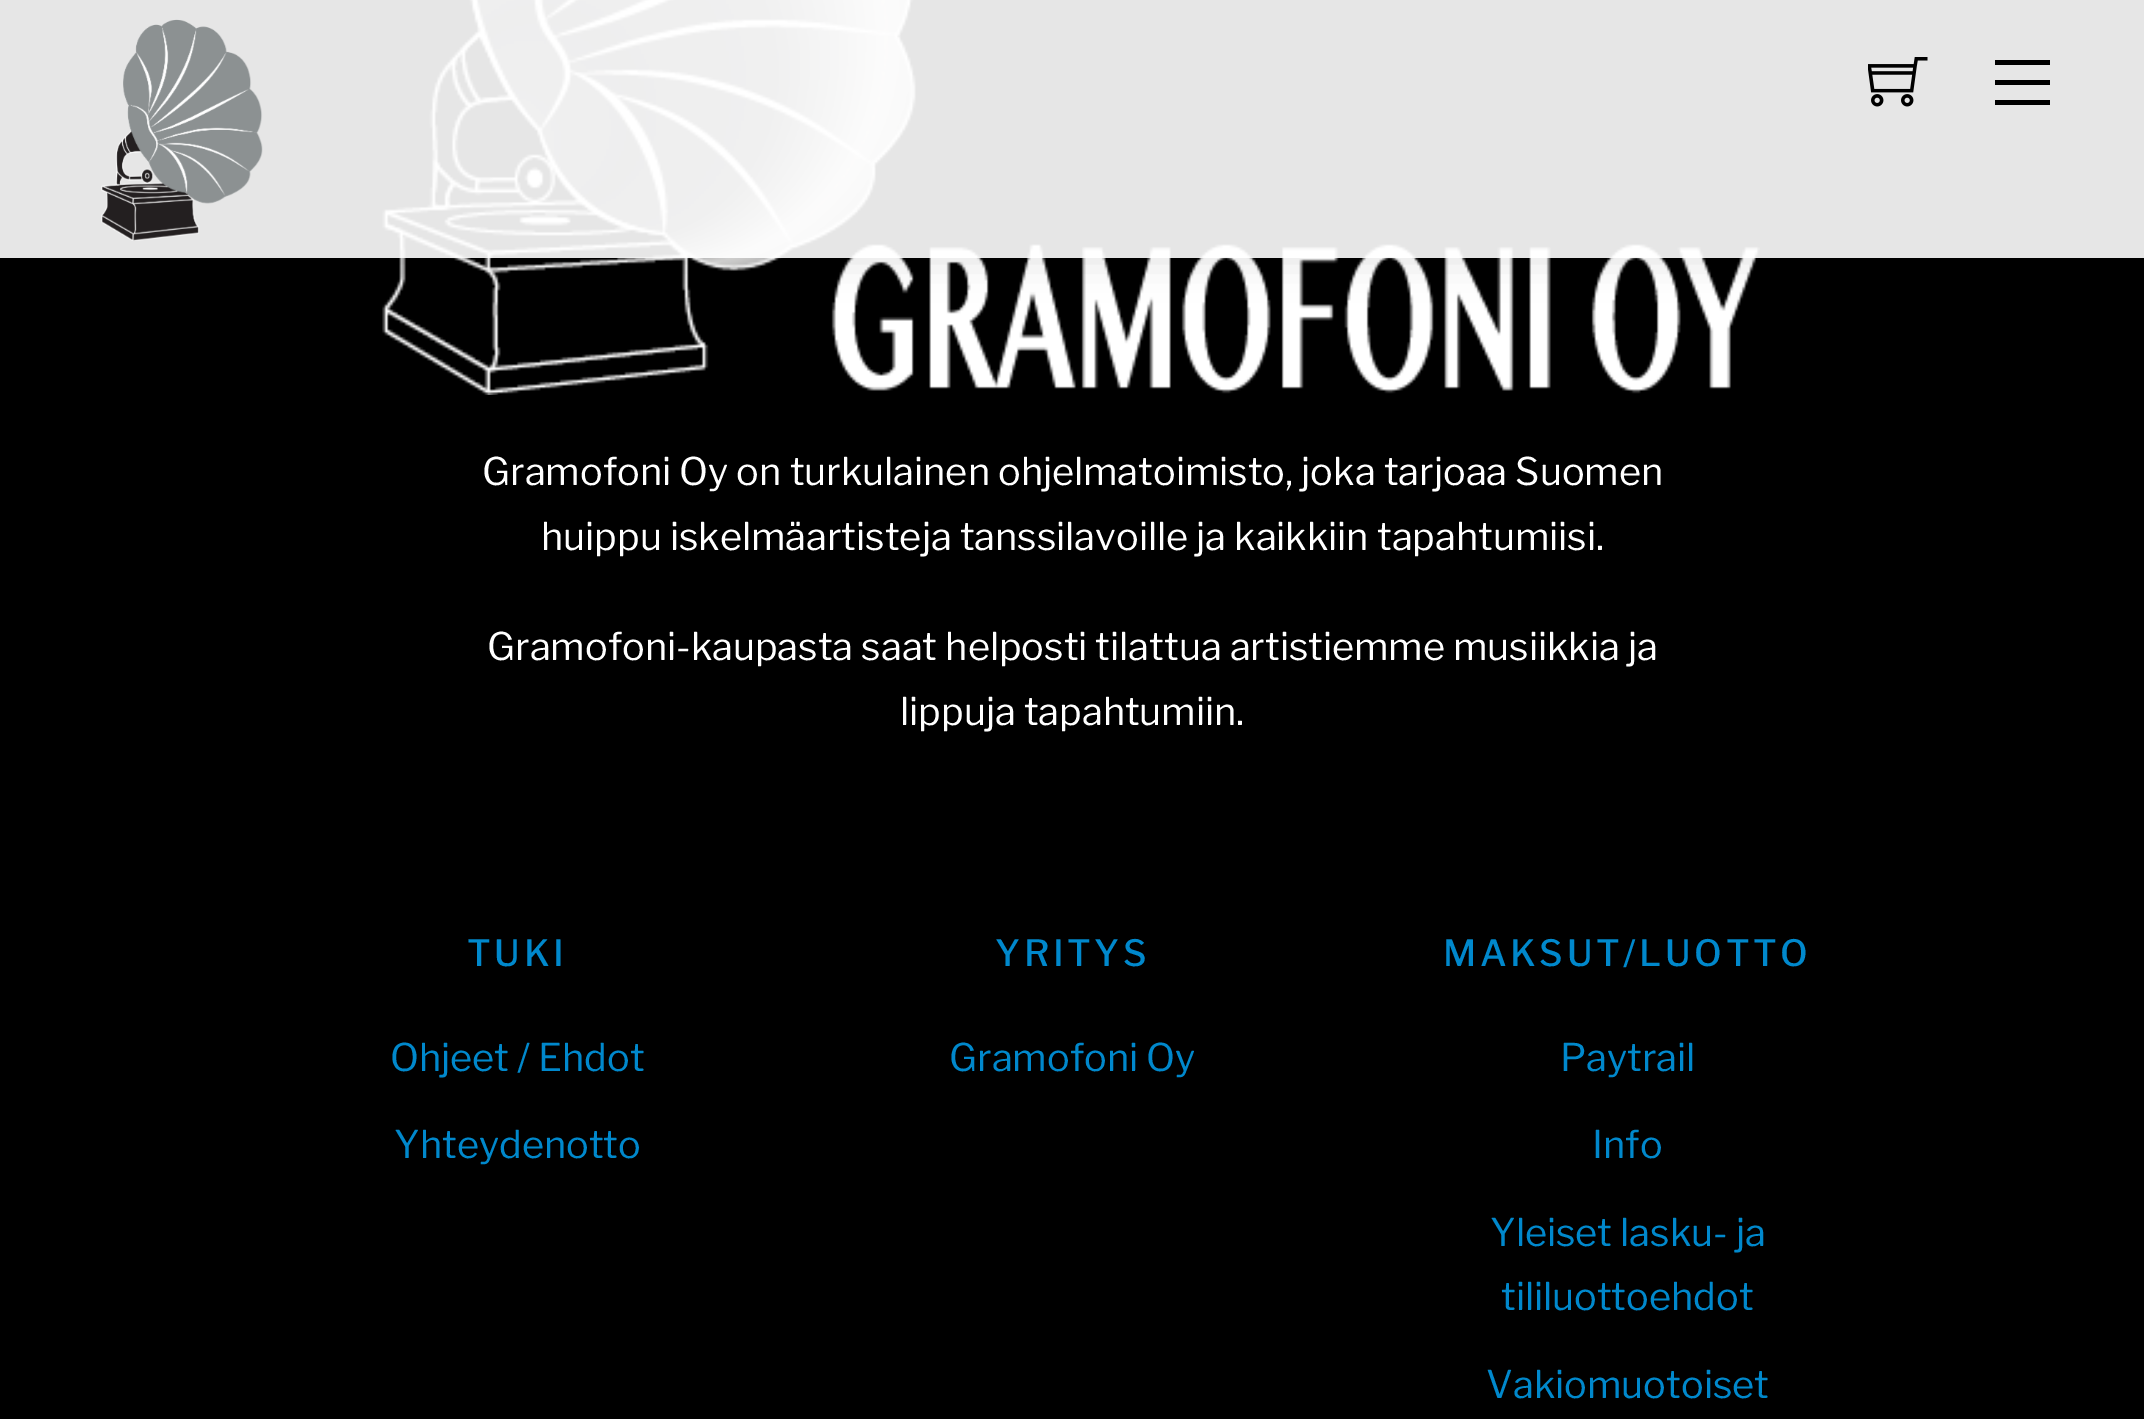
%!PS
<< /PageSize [2144 1419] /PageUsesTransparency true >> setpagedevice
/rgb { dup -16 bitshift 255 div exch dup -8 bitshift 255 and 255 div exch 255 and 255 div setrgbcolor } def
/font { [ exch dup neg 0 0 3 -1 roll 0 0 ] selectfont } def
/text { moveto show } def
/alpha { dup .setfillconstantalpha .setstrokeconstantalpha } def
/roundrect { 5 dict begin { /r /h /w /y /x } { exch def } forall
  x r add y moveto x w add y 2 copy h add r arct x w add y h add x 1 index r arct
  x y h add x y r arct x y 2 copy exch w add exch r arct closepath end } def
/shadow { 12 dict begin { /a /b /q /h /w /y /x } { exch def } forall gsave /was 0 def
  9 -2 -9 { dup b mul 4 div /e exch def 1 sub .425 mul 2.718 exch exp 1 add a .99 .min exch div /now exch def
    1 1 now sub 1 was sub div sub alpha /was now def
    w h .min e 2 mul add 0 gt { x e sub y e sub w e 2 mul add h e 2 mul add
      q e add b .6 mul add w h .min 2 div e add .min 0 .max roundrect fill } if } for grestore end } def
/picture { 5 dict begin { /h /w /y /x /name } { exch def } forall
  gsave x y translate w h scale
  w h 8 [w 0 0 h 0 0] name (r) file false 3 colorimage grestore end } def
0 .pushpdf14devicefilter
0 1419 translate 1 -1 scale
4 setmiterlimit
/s1 { /LibreFranklin-Regular 38 font 16#FFFFFF rgb } def
/s2 { /LibreFranklin-Regular 38 font 16#0088CC rgb } def
16#000000 rgb
0 0 2144 1419 rectfill
(pic3.raw) 382 0 1378 395 picture
gsave
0 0 moveto 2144 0 lineto 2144 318 lineto 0 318 lineto closepath 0 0 moveto 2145 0 lineto 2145 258 lineto 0 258 lineto closepath eoclip newpath
0 3 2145 257 0 19 0.12 shadow
grestore
0.9 alpha
16#FFFFFF rgb
0 0 2144 258 rectfill
1 alpha
(pic1.raw) 101 19 162 222 picture
(pic2.raw) 1868 57 60 50 picture
16#000000 rgb
1995 60 55 5 rectfill
1995 100 55 5 rectfill
1995 80 55 5 rectfill
s1
(Gramofoni Oy on turkulainen ohjelmatoimisto, joka tarjoaa Suomen) 482 485 text
(huippu iskelmäartisteja tanssilavoille ja kaikkiin tapahtumiisi.) 541 550 text
(Gramofoni-kaupasta saat helposti tilattua artistiemme musiikkia ja) 487 660 text
(lippuja tapahtumiin.) 900 725 text
/LibreFranklin-Medium 36.1 font
16#0088CC rgb
467 966 moveto 3.6 0 (TUKI) ashow
s2
(Ohjeet / Ehdot) 390 1071 text
(Yhteydenotto) 394 1158 text
/LibreFranklin-Medium 36.1 font
995 966 moveto 3.6 0 (YRITYS) ashow
s2
(Gramofoni Oy) 949 1071 text
/LibreFranklin-Medium 36.1 font
1443 966 moveto 3.6 0 (MAKSUT/LUOTTO) ashow
s2
(Paytrail) 1560 1071 text
(Info) 1592 1158 text
(Yleiset lasku- ja) 1490 1246 text
(tililuottoehdot) 1501 1310 text
(Vakiomuotoiset) 1486 1398 text
.poppdf14devicefilter showpage
